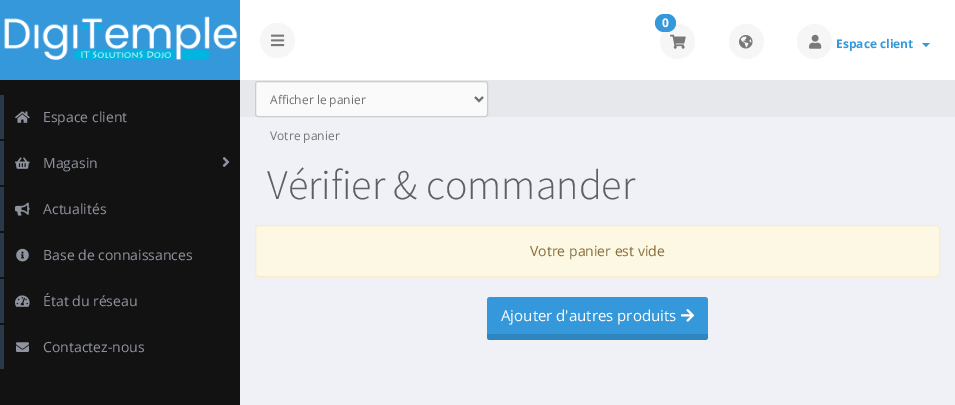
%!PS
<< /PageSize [955 405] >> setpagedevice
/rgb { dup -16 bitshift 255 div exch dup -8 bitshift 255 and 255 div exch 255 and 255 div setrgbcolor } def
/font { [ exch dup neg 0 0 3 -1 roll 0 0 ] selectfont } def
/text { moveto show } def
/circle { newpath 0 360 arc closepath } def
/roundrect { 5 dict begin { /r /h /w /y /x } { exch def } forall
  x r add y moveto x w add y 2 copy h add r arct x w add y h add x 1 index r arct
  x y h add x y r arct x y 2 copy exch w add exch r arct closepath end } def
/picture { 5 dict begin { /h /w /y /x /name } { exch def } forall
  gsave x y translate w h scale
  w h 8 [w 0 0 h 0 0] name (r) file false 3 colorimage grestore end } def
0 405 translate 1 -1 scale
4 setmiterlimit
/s1 { /OpenSans-Bold 12 font 16#FFFFFF rgb } def
/s2 { /OpenSans-Bold 12 font 16#3598DB rgb } def
/s3 { /OpenSans-Regular 14 font 16#8F939E rgb } def
/s4 { /OpenSans-Regular 12 font 16#717171 rgb } def
/s5 { /OpenSans-Regular 12 font 16#777777 rgb } def
/s6 { /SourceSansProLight-Light 42 font 16#5D5F63 rgb } def
/s7 { /OpenSans-Regular 14 font 16#8A6D3B rgb } def
/s8 { /OpenSans-Regular 15 font 16#FFFFFF rgb } def
16#F0F1F6 rgb
0 0 955 405 rectfill
16#FFFFFF rgb
240 0 715 80 rectfill
16#3598DB rgb
0 0 240 80 rectfill
(pic1.raw) 4 16 234 44 picture
16#F6F6F6 rgb
277.5 40.5 17.5 circle fill
(pic2.raw) 271 34 14 13 picture
677.5 41.5 17.5 circle fill
16#3598DB rgb
655 14 21 18 9 roundrect fill
s1
(0) 662 27 text
(pic3.raw) 670 34 16 15 picture
16#F6F6F6 rgb
746.5 41.5 17.5 circle fill
(pic4.raw) 739 35 14 14 picture
814.5 41.5 17.5 circle fill
(pic5.raw) 809 34 13 15 picture
s2
(Espace client) 836 48 text
922 43 moveto 930 43 lineto 926 47 lineto closepath fill
16#121212 rgb
0 80 240 325 rectfill
16#293949 rgb
0 95 4 44 rectfill
(pic6.raw) 15 111 15 12 picture
s3
(Espace client) 43 122 text
16#293949 rgb
0 141 4 44 rectfill
(pic7.raw) 15 157 15 12 picture
s3
(Magasin) 43 168 text
(pic8.raw) 222 157 8 10 picture
16#293949 rgb
0 187 4 44 rectfill
(pic9.raw) 15 202 15 14 picture
s3
(Actualités) 43 214 text
16#293949 rgb
0 233 4 44 rectfill
(pic10.raw) 16 248 13 14 picture
s3
(Base de connaissances) 43 260 text
16#293949 rgb
0 279 4 44 rectfill
(pic11.raw) 15 295 15 12 picture
s3
(État du réseau) 43 306 text
16#293949 rgb
0 325 4 44 rectfill
(pic12.raw) 16 342 13 10 picture
s3
(Contactez-nous) 43 352 text
16#E7E8EC rgb
240 80 715 37 rectfill
16#FAFAFA rgb
255.5 81.5 232 35 2.5 roundrect gsave fill grestore
16#CCCCCC rgb
stroke
16#717171 rgb
2 setlinewidth
475 97 moveto 479 101 lineto 483 97 lineto stroke
s4
(Afficher le panier) 270 104 text
s5
(Votre panier) 270 140 text
s6
(Vérifier & commander) 267 199 text
16#FCF8E3 rgb
255.5 225.5 684 51 3.5 roundrect gsave fill grestore
16#FAEBCC rgb
1 setlinewidth
stroke
s7
(Votre panier est vide) 530 256 text
16#2E86C1 rgb
487 331 moveto 487 337 lineto 487 339 488 340 490 340 curveto 705 340 lineto 707 340 708 339 708 337 curveto 708 331 lineto 708 333 707 334 705 334 curveto 490 334 lineto 488 334 487 333 487 331 curveto closepath fill
16#3598DB rgb
487 297 221 37 3 roundrect fill
s8
(Ajouter d'autres produits) 501 321 text
(pic13.raw) 681 309 14 13 picture
showpage
